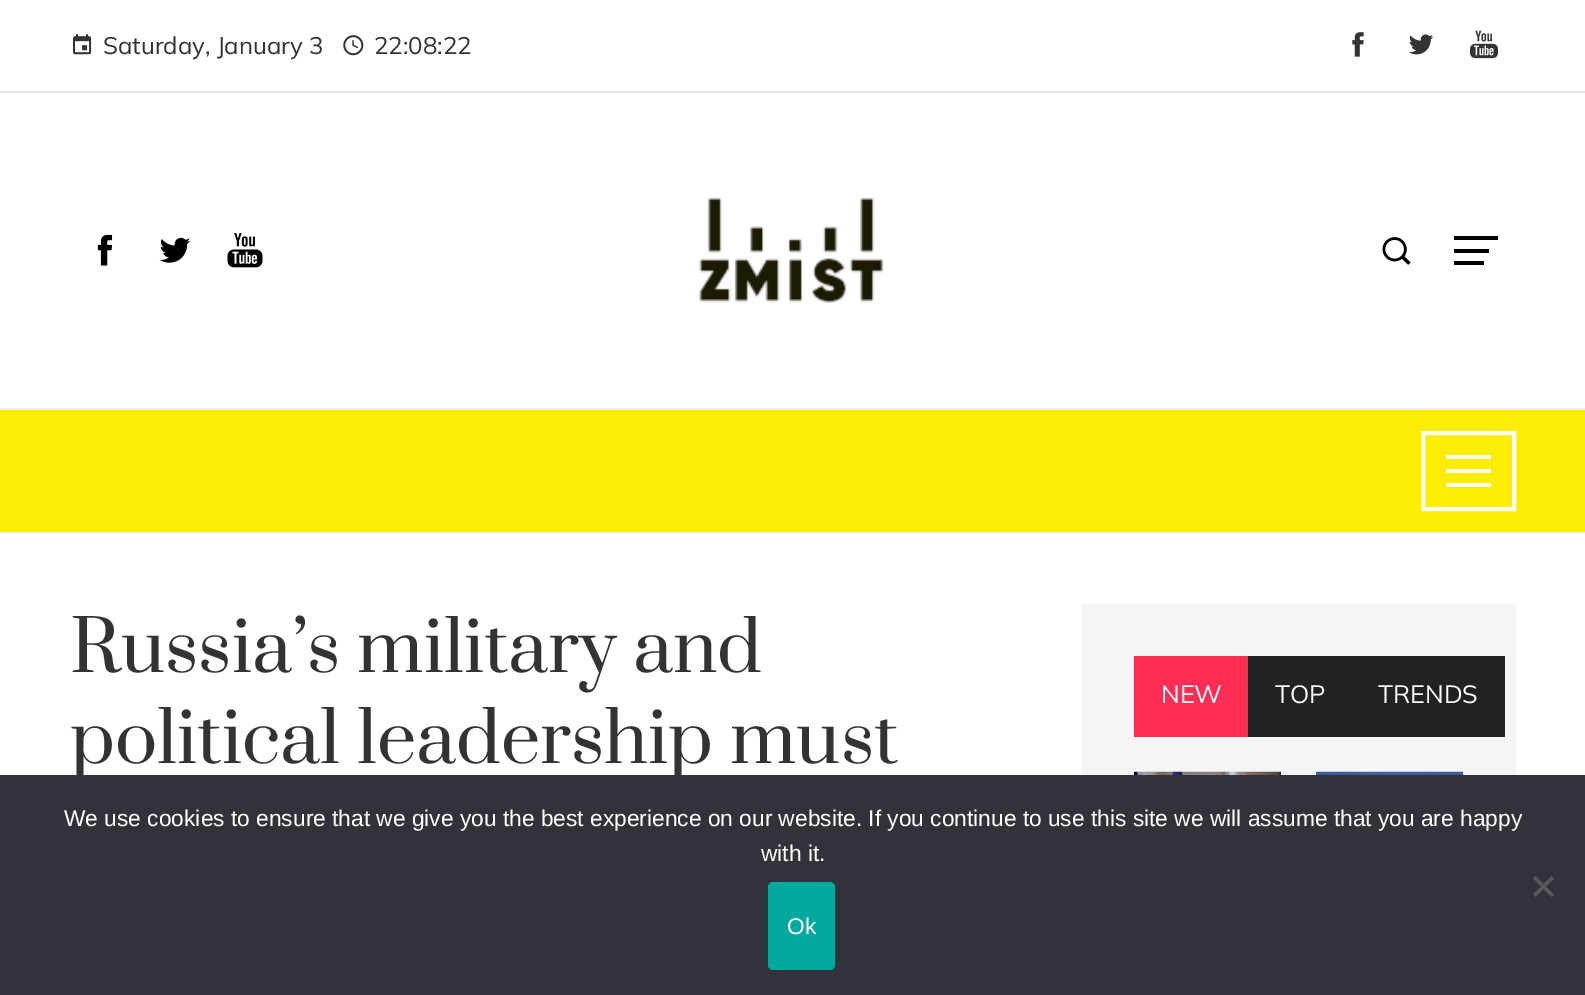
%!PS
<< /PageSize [1585 995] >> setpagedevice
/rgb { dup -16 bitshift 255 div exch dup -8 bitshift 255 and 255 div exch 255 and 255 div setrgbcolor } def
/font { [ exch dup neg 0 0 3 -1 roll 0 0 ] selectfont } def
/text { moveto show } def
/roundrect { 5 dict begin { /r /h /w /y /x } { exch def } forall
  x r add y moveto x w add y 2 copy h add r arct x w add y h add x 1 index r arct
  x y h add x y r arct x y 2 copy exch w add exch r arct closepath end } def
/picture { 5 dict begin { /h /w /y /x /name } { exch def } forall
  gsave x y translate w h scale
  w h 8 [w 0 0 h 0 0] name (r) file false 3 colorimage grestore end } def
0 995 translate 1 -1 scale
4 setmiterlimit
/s1 { /Mulish-Regular 24 font 16#333333 rgb } def
/s2 { /Prata-Regular 70 font 16#333333 rgb } def
/s3 { /Mulish-Regular 25 font 16#FFFFFF rgb } def
/s4 { /LiberationSans-Regular 22.75 font 16#FFFFFF rgb } def
16#FFFFFF rgb
0 0 1585 995 rectfill
16#E5E5E5 rgb
0 91 1585 2 rectfill
(pic1.raw) 73 34 19 21 picture
s1
(Saturday, January 3) 103 54 text
(pic2.raw) 343 35 21 21 picture
(22:08:22) 374 54 text
(pic3.raw) 1352 32 12 25 picture
(pic4.raw) 1408 34 25 21 picture
(pic5.raw) 1470 30 28 29 picture
(pic6.raw) 97 234 16 32 picture
(pic7.raw) 159 237 32 26 picture
(pic8.raw) 227 233 36 35 picture
(pic9.raw) 699 197 185 106 picture
(pic10.raw) 1382 237 29 28 picture
16#000000 rgb
1454 236 44 4 rectfill
1454 249 35 4 rectfill
1454 261 30 4 rectfill
16#FBED04 rgb
0 410 1585 122 rectfill
16#EEEEEE rgb
0 408 1585 2 rectfill
0 532 1585 2 rectfill
16#FFFFFF rgb
4 setlinewidth
1423 433 91 76 rectstroke
1446 455 45 4 2 roundrect fill
1446 469 45 4 2 roundrect fill
1446 483 45 4 2 roundrect fill
s2
(Russia’s military and) 70 672 text
(political leadership must) 70 763 text
16#F5F5F5 rgb
1082 604 434 171 rectfill
16#FF2C54 rgb
1134 656 114 81 rectfill
s3
(NEW) 1161 703 text
16#222222 rgb
1248 656 257 81 rectfill
s3
(TOP) 1275 703 text
(TRENDS) 1378 703 text
(pic11.raw) 1134 771 147 4 picture
(pic12.raw) 1316 771 147 4 picture
16#32323A rgb
0 775 1585 220 rectfill
s4
(We use cookies to ensure that we give you the best experience on our website. If you continue to use this site we will assume that you are happy) 64 826 text
(with it.) 761 861 text
16#59595D rgb
1551.5 876 moveto 1554 878.5 lineto 1535.5 897 lineto 1533 894.5 lineto closepath fill
1533 878.5 moveto 1535.5 876 lineto 1554 894.5 lineto 1551.5 897 lineto closepath fill
16#00A99D rgb
768 882 67 88 5 roundrect fill
s4
(Ok) 787 934 text
showpage
